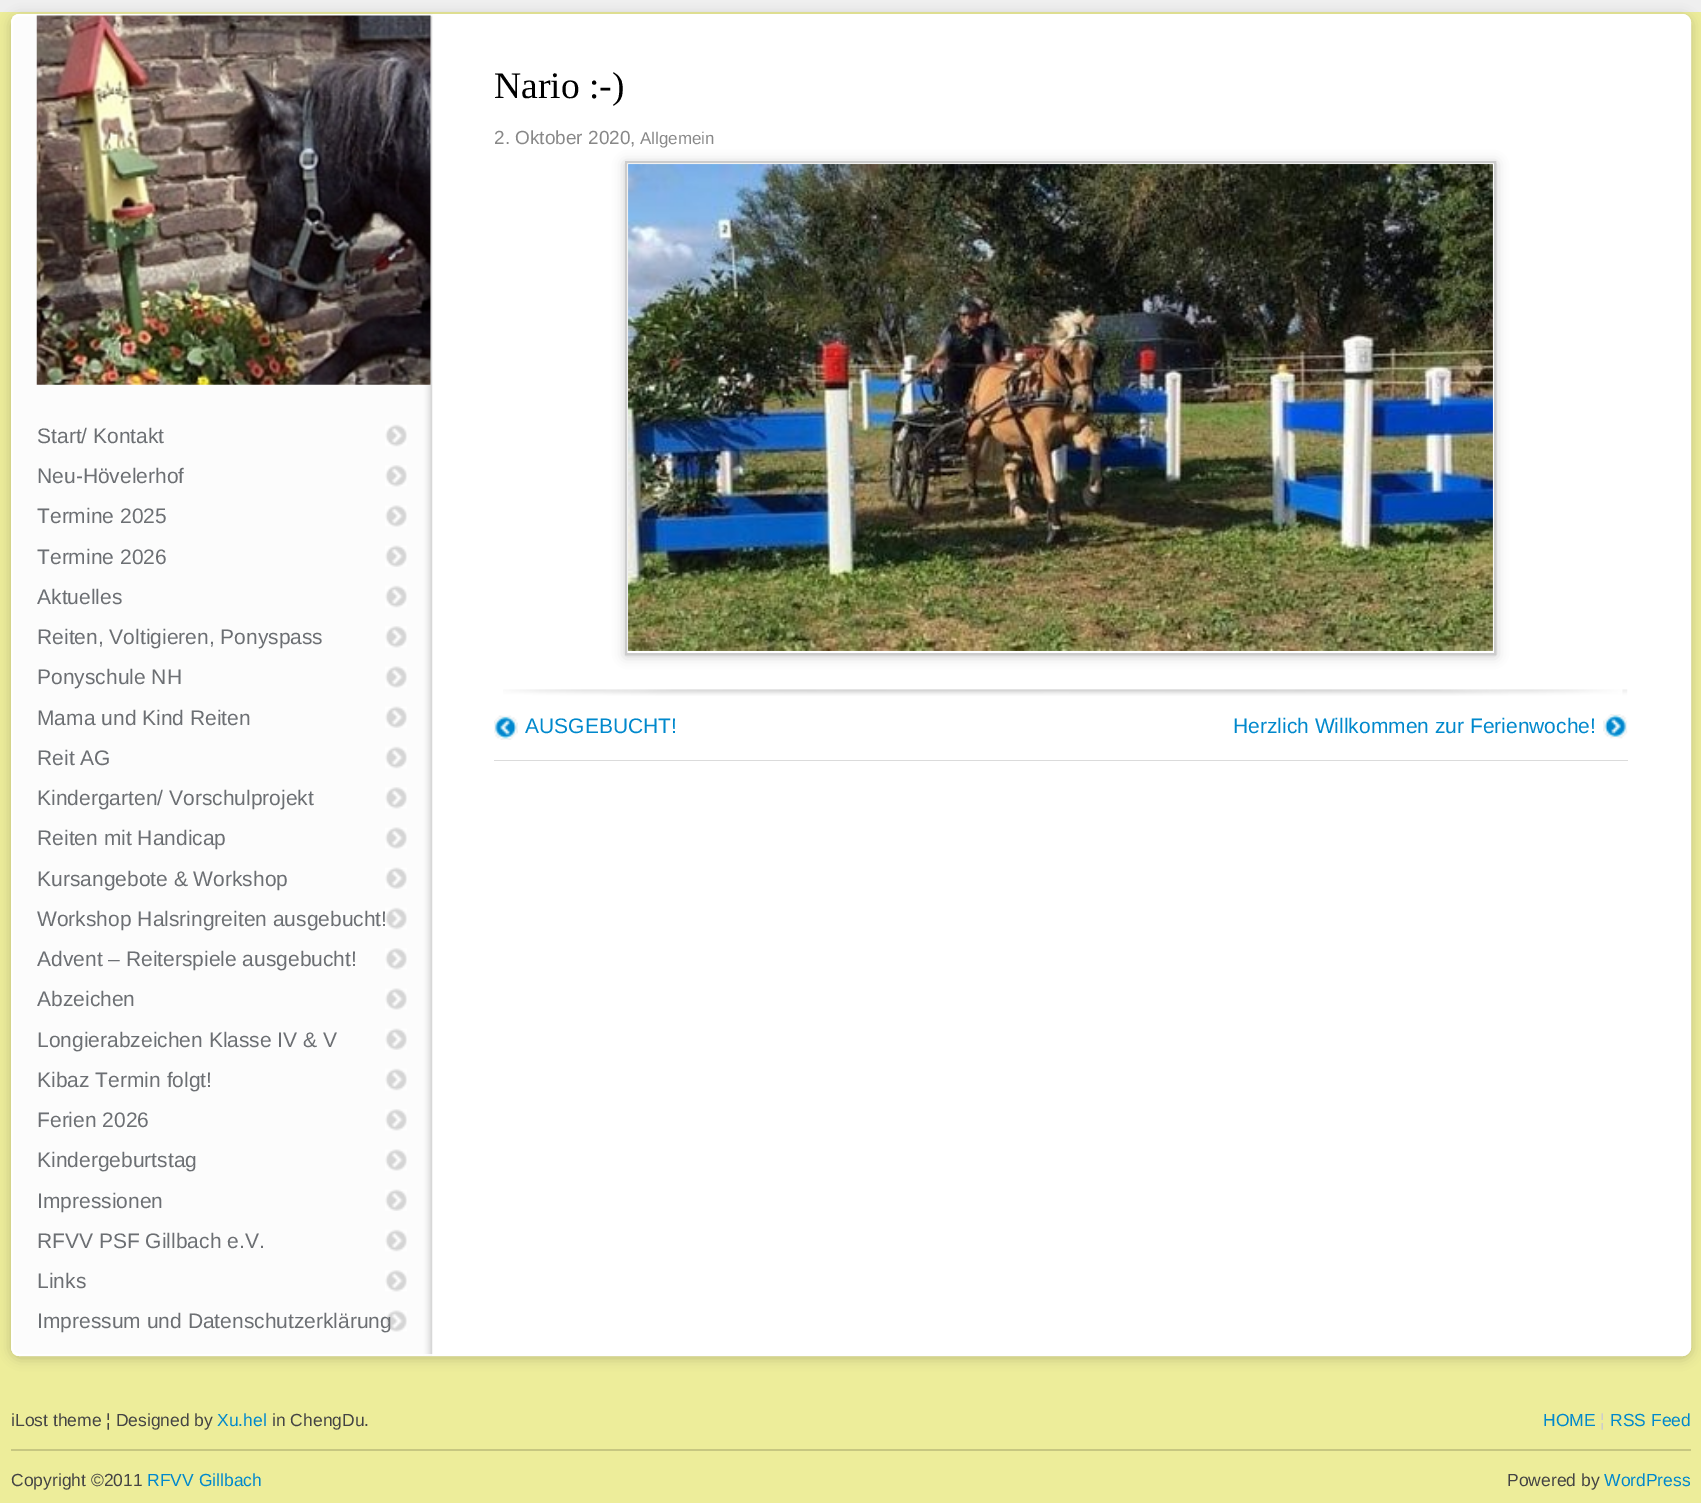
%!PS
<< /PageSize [1701 1503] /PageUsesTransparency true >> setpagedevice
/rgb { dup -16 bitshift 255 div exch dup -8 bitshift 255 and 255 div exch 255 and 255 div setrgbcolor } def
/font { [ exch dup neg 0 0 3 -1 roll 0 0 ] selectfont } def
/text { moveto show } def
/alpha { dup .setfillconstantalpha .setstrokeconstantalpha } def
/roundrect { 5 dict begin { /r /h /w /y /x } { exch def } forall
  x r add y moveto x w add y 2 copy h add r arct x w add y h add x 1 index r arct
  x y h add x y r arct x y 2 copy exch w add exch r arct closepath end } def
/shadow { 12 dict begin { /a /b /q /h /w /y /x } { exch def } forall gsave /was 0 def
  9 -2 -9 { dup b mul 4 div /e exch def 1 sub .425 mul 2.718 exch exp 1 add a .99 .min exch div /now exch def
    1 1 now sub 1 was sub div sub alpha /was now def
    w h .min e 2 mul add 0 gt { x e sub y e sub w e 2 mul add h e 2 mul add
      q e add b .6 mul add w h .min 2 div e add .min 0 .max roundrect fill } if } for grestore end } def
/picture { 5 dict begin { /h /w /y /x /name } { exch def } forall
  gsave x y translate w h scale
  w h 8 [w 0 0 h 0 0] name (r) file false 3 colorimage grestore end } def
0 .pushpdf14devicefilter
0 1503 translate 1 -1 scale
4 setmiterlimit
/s1 { /LiberationSans-Regular 21 font 16#6C6F73 rgb } def
/s2 { /LiberationSerif-Regular 37.5 font 16#000000 rgb } def
/s3 { /LiberationSans-Regular 19 font 16#888888 rgb } def
/s4 { /LiberationSans-Regular 17 font 16#888888 rgb } def
/s5 { /LiberationSans-Regular 21 font 16#0088CC rgb } def
/s6 { /LiberationSans-Regular 17.5 font 16#444444 rgb } def
/s7 { /LiberationSans-Regular 17.5 font 16#0088CC rgb } def
/s8 { /LiberationSans-Regular 17.5 font 16#CCCCCC rgb } def
16#EDED9A rgb
0 0 1701 1503 rectfill
16#EFEFEF rgb
0 0 1701 12 rectfill
16#000000 rgb
11 16 1680 1342 9 6 0.21 shadow
16#FFFFFF rgb
11 14 1680 1342 9 roundrect fill
(pic1.raw) 12 13 421 1343 picture
0.86 alpha
2 setlinewidth
12 15 1678 1340 8 roundrect stroke
1 alpha
(pic2.raw) 36 15 395 370 picture
(pic3.raw) 385 424 22 23 picture
s1
(Start/ Kontakt) 37 443 text
(pic4.raw) 385 465 22 22 picture
(Neu-Hövelerhof) 37 483 text
(pic5.raw) 385 505 22 22 picture
(Termine 2025) 37 523 text
(pic6.raw) 385 545 22 22 picture
(Termine 2026) 37 564 text
(pic3.raw) 385 585 22 23 picture
(Aktuelles) 37 604 text
(pic4.raw) 385 626 22 22 picture
(Reiten, Voltigieren, Ponyspass) 37 644 text
(pic5.raw) 385 666 22 22 picture
(Ponyschule NH) 37 684 text
(pic6.raw) 385 706 22 22 picture
(Mama und Kind Reiten) 37 725 text
(pic3.raw) 385 746 22 23 picture
(Reit AG) 37 765 text
(pic4.raw) 385 787 22 22 picture
(Kindergarten/ Vorschulprojekt) 37 805 text
(pic5.raw) 385 827 22 22 picture
(Reiten mit Handicap) 37 845 text
(pic6.raw) 385 867 22 22 picture
(Kursangebote & Workshop) 37 886 text
(pic3.raw) 385 907 22 23 picture
(Workshop Halsringreiten ausgebucht!) 37 926 text
(pic4.raw) 385 948 22 22 picture
(Advent – Reiterspiele ausgebucht!) 37 966 text
(pic5.raw) 385 988 22 22 picture
(Abzeichen) 37 1006 text
(pic6.raw) 385 1028 22 22 picture
(Longierabzeichen Klasse IV & V) 37 1047 text
(pic3.raw) 385 1068 22 23 picture
(Kibaz Termin folgt!) 37 1087 text
(pic4.raw) 385 1109 22 22 picture
(Ferien 2026) 37 1127 text
(pic5.raw) 385 1149 22 22 picture
(Kindergeburtstag) 37 1167 text
(pic6.raw) 385 1189 22 22 picture
(Impressionen) 37 1208 text
(pic3.raw) 385 1229 22 23 picture
(RFVV PSF Gillbach e.V.) 37 1248 text
(pic4.raw) 385 1270 22 22 picture
(Links) 37 1288 text
(pic5.raw) 385 1310 22 22 picture
(Impressum und Datenschutzerklärung) 37 1328 text
s2
(Nario :-\)) 494 98 text
s3
(2. Oktober 2020,) 494 144 text
s4
(Allgemein) 640 144 text
gsave
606 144 moveto 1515 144 lineto 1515 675 lineto 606 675 lineto closepath 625 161 moveto 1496 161 lineto 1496 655 lineto 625 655 lineto closepath eoclip newpath
16#000000 rgb
625 163 871 493 0 6 0.2 shadow
grestore
(pic7.raw) 628 164 865 487 picture
0.2 alpha
16#000000 rgb
626 162 869 492 rectstroke
1 alpha
(pic8.raw) 628 164 865 487 picture
(pic9.raw) 503 689 1125 7 picture
16#DBDBDB rgb
494 760 1134 1 rectfill
(pic10.raw) 494 715 24 25 picture
s5
(AUSGEBUCHT!) 525 733 text
(pic11.raw) 1603 714 25 25 picture
(Herzlich Willkommen zur Ferienwoche!) 1233 733 text
16#C7C781 rgb
11 1449 1680 2 rectfill
s6
(iLost theme ¦ Designed by) 11 1426 text
s7
(Xu.hel) 217 1426 text
s6
(in ChengDu.) 272 1426 text
s7
(HOME) 1543 1426 text
s8
(¦) 1600 1426 text
s7
(RSS Feed) 1610 1426 text
s6
(Copyright ©2011) 11 1486 text
s7
(RFVV Gillbach) 147 1486 text
s6
(Powered by) 1507 1486 text
s7
(WordPress) 1604 1486 text
.poppdf14devicefilter showpage
